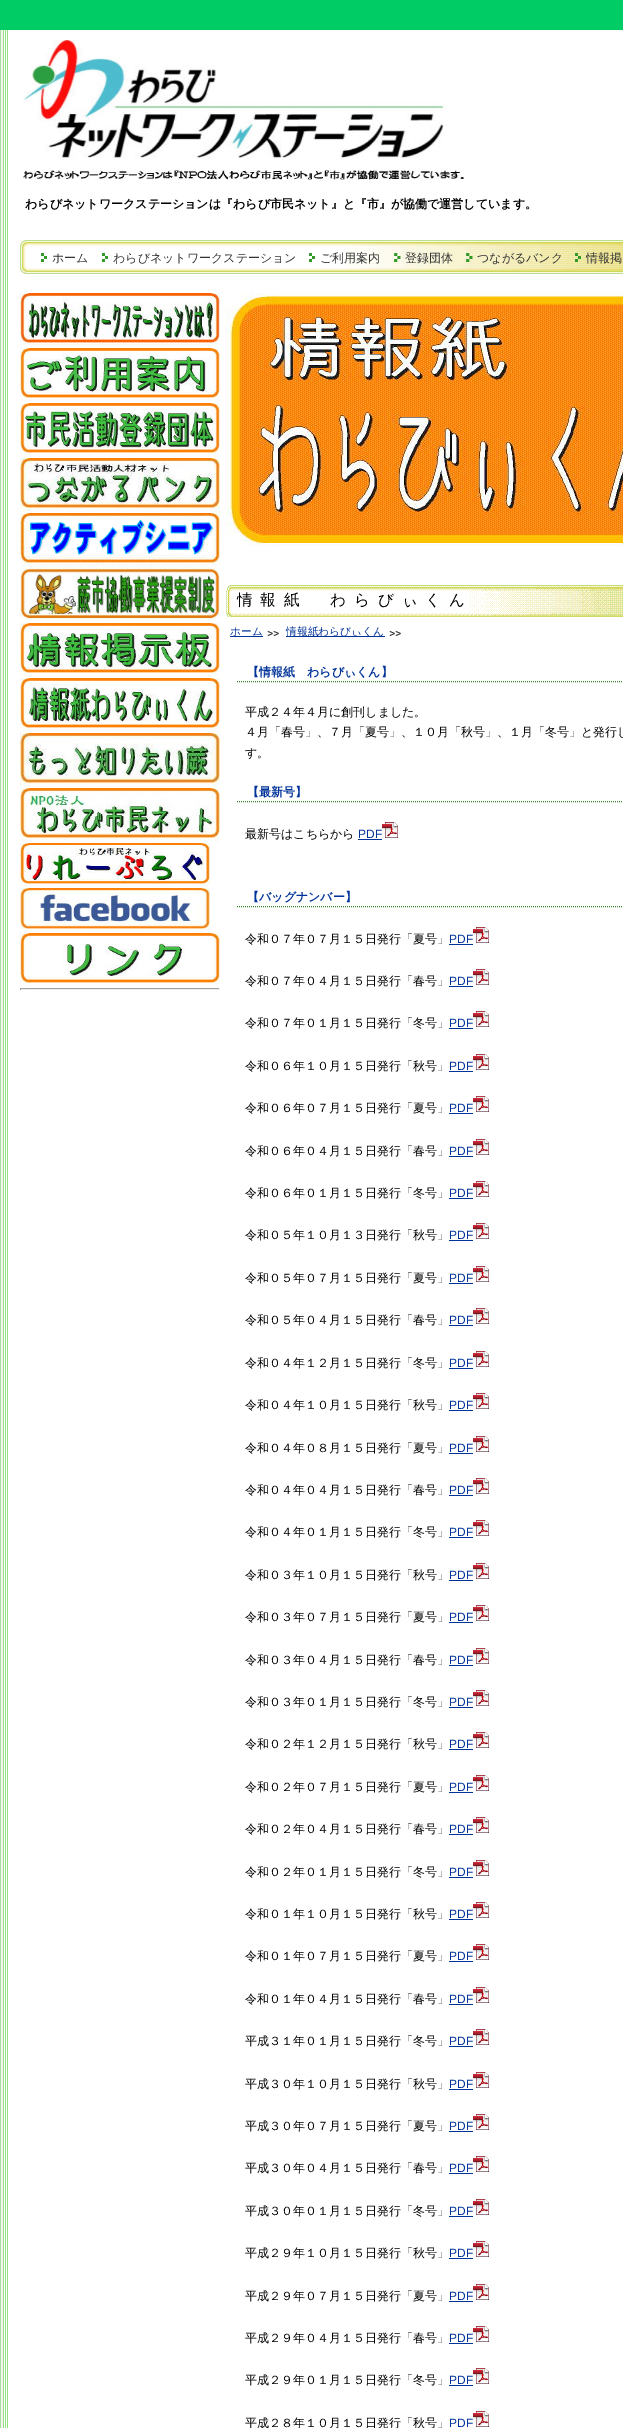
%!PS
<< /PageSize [623 2428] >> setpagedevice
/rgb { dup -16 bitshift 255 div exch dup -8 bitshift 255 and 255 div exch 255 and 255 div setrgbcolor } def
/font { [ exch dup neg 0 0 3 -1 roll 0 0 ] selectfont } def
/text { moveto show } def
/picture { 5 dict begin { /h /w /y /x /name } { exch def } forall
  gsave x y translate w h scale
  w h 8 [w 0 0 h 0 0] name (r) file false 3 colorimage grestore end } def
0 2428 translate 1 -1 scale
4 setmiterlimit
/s1 { /WenQuanYiZenHei-Bold 12 font 16#000000 rgb } def
/s2 { /WenQuanYiZenHei-Medium 12 font 16#333333 rgb } def
/s3 { /WenQuanYiZenHei-Medium 10.75 font 16#003399 rgb } def
/s4 { /WenQuanYiZenHei-Bold 12 font 16#003399 rgb } def
/s5 { /WenQuanYiZenHei-Medium 12 font 16#000000 rgb } def
/s6 { /LiberationSans-Regular 12 font 16#003399 rgb } def
16#00CC66 rgb
0 0 623 2428 rectfill
16#FFFFFF rgb
8 30 615 2398 rectfill
(pic1.raw) 0 30 8 2398 picture
(pic2.raw) 23 40 441 140 picture
s1
(わらびネットワークステーションは『わらび市民ネット』と『市』が協働で運営しています。) 25 208 text
(pic3.raw) 0 238 623 40 picture
(pic4.raw) 41 253 6 9 picture
s2
(ホーム) 52 262 text
(pic4.raw) 102 253 6 9 picture
(わらびネットワークステーション) 113 262 text
(pic4.raw) 309 253 6 9 picture
(ご利用案内) 320 262 text
(pic5.raw) 394 253 7 9 picture
(登録団体) 405 262 text
(pic6.raw) 466 253 7 9 picture
(つながるバンク) 477 262 text
(pic7.raw) 575 253 6 9 picture
(情報掲) 586 262 text
(pic8.raw) 20 293 200 54 picture
(pic9.raw) 20 348 200 54 picture
(pic10.raw) 20 403 200 54 picture
(pic11.raw) 20 458 200 54 picture
(pic12.raw) 20 513 200 55 picture
(pic13.raw) 20 568 200 54 picture
(pic14.raw) 20 623 200 54 picture
(pic15.raw) 20 678 200 54 picture
(pic16.raw) 20 733 200 54 picture
(pic17.raw) 20 788 200 54 picture
(pic18.raw) 20 843 190 44 picture
(pic19.raw) 20 888 190 45 picture
(pic20.raw) 20 933 200 54 picture
16#9F9F9F rgb
20 988 200 1 rectfill
16#EEEEEE rgb
219 988 1 2 rectfill
20 989 200 1 rectfill
16#9F9F9F rgb
20 988 1 2 rectfill
(pic21.raw) 225 293 398 253 picture
(pic22.raw) 226 585 397 32 picture
/WenQuanYiZenHei-Medium 15.6 font
16#000000 rgb
237 605 moveto 7.75 0 (情報紙　わらびぃくん) ashow
16#003399 rgb
230 636 33 1 rectfill
s3
(ホーム) 230 635 text
(pic23.raw) 267 630 12 7 picture
286 636 99 1 rectfill
(情報紙わらびぃくん) 286 635 text
(pic23.raw) 389 630 12 7 picture
16#338622 rgb
[1 1] 0 setdash
237 681.5 moveto 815 681.5 lineto stroke
s4
(【情報紙　わらびぃくん】) 247 676 text
s5
(平成２４年４月に創刊しました。) 245 716 text
(４月「春号」、７月「夏号」、１０月「秋号」、１月「冬号」と発行し) 245 736 text
(す。) 245 757 text
16#338622 rgb
237 801.5 moveto 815 801.5 lineto stroke
s4
(【最新号】) 247 796 text
s5
(最新号はこちらから) 245 838 text
s6
(PDF) 358 838 text
358 839 24 1 rectfill
(pic24.raw) 382 822 16 16 picture
16#338622 rgb
237 906.5 moveto 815 906.5 lineto stroke
s4
(【バッグナンバー】) 247 901 text
s5
(令和０７年０７月１５日発行「夏号」) 245 943 text
s6
(PDF) 449 943 text
449 944 24 1 rectfill
(pic24.raw) 473 927 16 16 picture
s5
(令和０７年０４月１５日発行「春号」) 245 985 text
s6
(PDF) 449 985 text
449 986 24 1 rectfill
(pic24.raw) 473 969 16 16 picture
s5
(令和０７年０１月１５日発行「冬号」) 245 1027 text
s6
(PDF) 449 1027 text
449 1028 24 1 rectfill
(pic24.raw) 473 1011 16 16 picture
s5
(令和０６年１０月１５日発行「秋号」) 245 1070 text
s6
(PDF) 449 1070 text
449 1071 24 1 rectfill
(pic24.raw) 473 1054 16 16 picture
s5
(令和０６年０７月１５日発行「夏号」) 245 1112 text
s6
(PDF) 449 1112 text
449 1113 24 1 rectfill
(pic24.raw) 473 1096 16 16 picture
s5
(令和０６年０４月１５日発行「春号」) 245 1155 text
s6
(PDF) 449 1155 text
449 1156 24 1 rectfill
(pic24.raw) 473 1139 16 16 picture
s5
(令和０６年０１月１５日発行「冬号」) 245 1197 text
s6
(PDF) 449 1197 text
449 1198 24 1 rectfill
(pic24.raw) 473 1181 16 16 picture
s5
(令和０５年１０月１３日発行「秋号」) 245 1239 text
s6
(PDF) 449 1239 text
449 1240 24 1 rectfill
(pic24.raw) 473 1223 16 16 picture
s5
(令和０５年０７月１５日発行「夏号」) 245 1282 text
s6
(PDF) 449 1282 text
449 1283 24 1 rectfill
(pic24.raw) 473 1266 16 16 picture
s5
(令和０５年０４月１５日発行「春号」) 245 1324 text
s6
(PDF) 449 1324 text
449 1325 24 1 rectfill
(pic24.raw) 473 1308 16 16 picture
s5
(令和０４年１２月１５日発行「冬号」) 245 1367 text
s6
(PDF) 449 1367 text
449 1368 24 1 rectfill
(pic24.raw) 473 1351 16 16 picture
s5
(令和０４年１０月１５日発行「秋号」) 245 1409 text
s6
(PDF) 449 1409 text
449 1410 24 1 rectfill
(pic24.raw) 473 1393 16 16 picture
s5
(令和０４年０８月１５日発行「夏号」) 245 1452 text
s6
(PDF) 449 1452 text
449 1453 24 1 rectfill
(pic24.raw) 473 1436 16 16 picture
s5
(令和０４年０４月１５日発行「春号」) 245 1494 text
s6
(PDF) 449 1494 text
449 1495 24 1 rectfill
(pic24.raw) 473 1478 16 16 picture
s5
(令和０４年０１月１５日発行「冬号」) 245 1536 text
s6
(PDF) 449 1536 text
449 1537 24 1 rectfill
(pic24.raw) 473 1520 16 16 picture
s5
(令和０３年１０月１５日発行「秋号」) 245 1579 text
s6
(PDF) 449 1579 text
449 1580 24 1 rectfill
(pic24.raw) 473 1563 16 16 picture
s5
(令和０３年０７月１５日発行「夏号」) 245 1621 text
s6
(PDF) 449 1621 text
449 1622 24 1 rectfill
(pic24.raw) 473 1605 16 16 picture
s5
(令和０３年０４月１５日発行「春号」) 245 1664 text
s6
(PDF) 449 1664 text
449 1665 24 1 rectfill
(pic24.raw) 473 1648 16 16 picture
s5
(令和０３年０１月１５日発行「冬号」) 245 1706 text
s6
(PDF) 449 1706 text
449 1707 24 1 rectfill
(pic24.raw) 473 1690 16 16 picture
s5
(令和０２年１２月１５日発行「秋号」) 245 1748 text
s6
(PDF) 449 1748 text
449 1749 24 1 rectfill
(pic24.raw) 473 1732 16 16 picture
s5
(令和０２年０７月１５日発行「夏号」) 245 1791 text
s6
(PDF) 449 1791 text
449 1792 24 1 rectfill
(pic24.raw) 473 1775 16 16 picture
s5
(令和０２年０４月１５日発行「春号」) 245 1833 text
s6
(PDF) 449 1833 text
449 1834 24 1 rectfill
(pic24.raw) 473 1817 16 16 picture
s5
(令和０２年０１月１５日発行「冬号」) 245 1876 text
s6
(PDF) 449 1876 text
449 1877 24 1 rectfill
(pic24.raw) 473 1860 16 16 picture
s5
(令和０１年１０月１５日発行「秋号」) 245 1918 text
s6
(PDF) 449 1918 text
449 1919 24 1 rectfill
(pic24.raw) 473 1902 16 16 picture
s5
(令和０１年０７月１５日発行「夏号」) 245 1960 text
s6
(PDF) 449 1960 text
449 1961 24 1 rectfill
(pic24.raw) 473 1944 16 16 picture
s5
(令和０１年０４月１５日発行「春号」) 245 2003 text
s6
(PDF) 449 2003 text
449 2004 24 1 rectfill
(pic24.raw) 473 1987 16 16 picture
s5
(平成３１年０１月１５日発行「冬号」) 245 2045 text
s6
(PDF) 449 2045 text
449 2046 24 1 rectfill
(pic24.raw) 473 2029 16 16 picture
s5
(平成３０年１０月１５日発行「秋号」) 245 2088 text
s6
(PDF) 449 2088 text
449 2089 24 1 rectfill
(pic24.raw) 473 2072 16 16 picture
s5
(平成３０年０７月１５日発行「夏号」) 245 2130 text
s6
(PDF) 449 2130 text
449 2131 24 1 rectfill
(pic24.raw) 473 2114 16 16 picture
s5
(平成３０年０４月１５日発行「春号」) 245 2172 text
s6
(PDF) 449 2172 text
449 2173 24 1 rectfill
(pic24.raw) 473 2156 16 16 picture
s5
(平成３０年０１月１５日発行「冬号」) 245 2215 text
s6
(PDF) 449 2215 text
449 2216 24 1 rectfill
(pic24.raw) 473 2199 16 16 picture
s5
(平成２９年１０月１５日発行「秋号」) 245 2257 text
s6
(PDF) 449 2257 text
449 2258 24 1 rectfill
(pic24.raw) 473 2241 16 16 picture
s5
(平成２９年０７月１５日発行「夏号」) 245 2300 text
s6
(PDF) 449 2300 text
449 2301 24 1 rectfill
(pic24.raw) 473 2284 16 16 picture
s5
(平成２９年０４月１５日発行「春号」) 245 2342 text
s6
(PDF) 449 2342 text
449 2343 24 1 rectfill
(pic24.raw) 473 2326 16 16 picture
s5
(平成２９年０１月１５日発行「冬号」) 245 2384 text
s6
(PDF) 449 2384 text
449 2385 24 1 rectfill
(pic24.raw) 473 2368 16 16 picture
s5
(平成２８年１０月１５日発行「秋号」) 245 2427 text
s6
(PDF) 449 2427 text
(pic24.raw) 473 2411 16 16 picture
showpage
